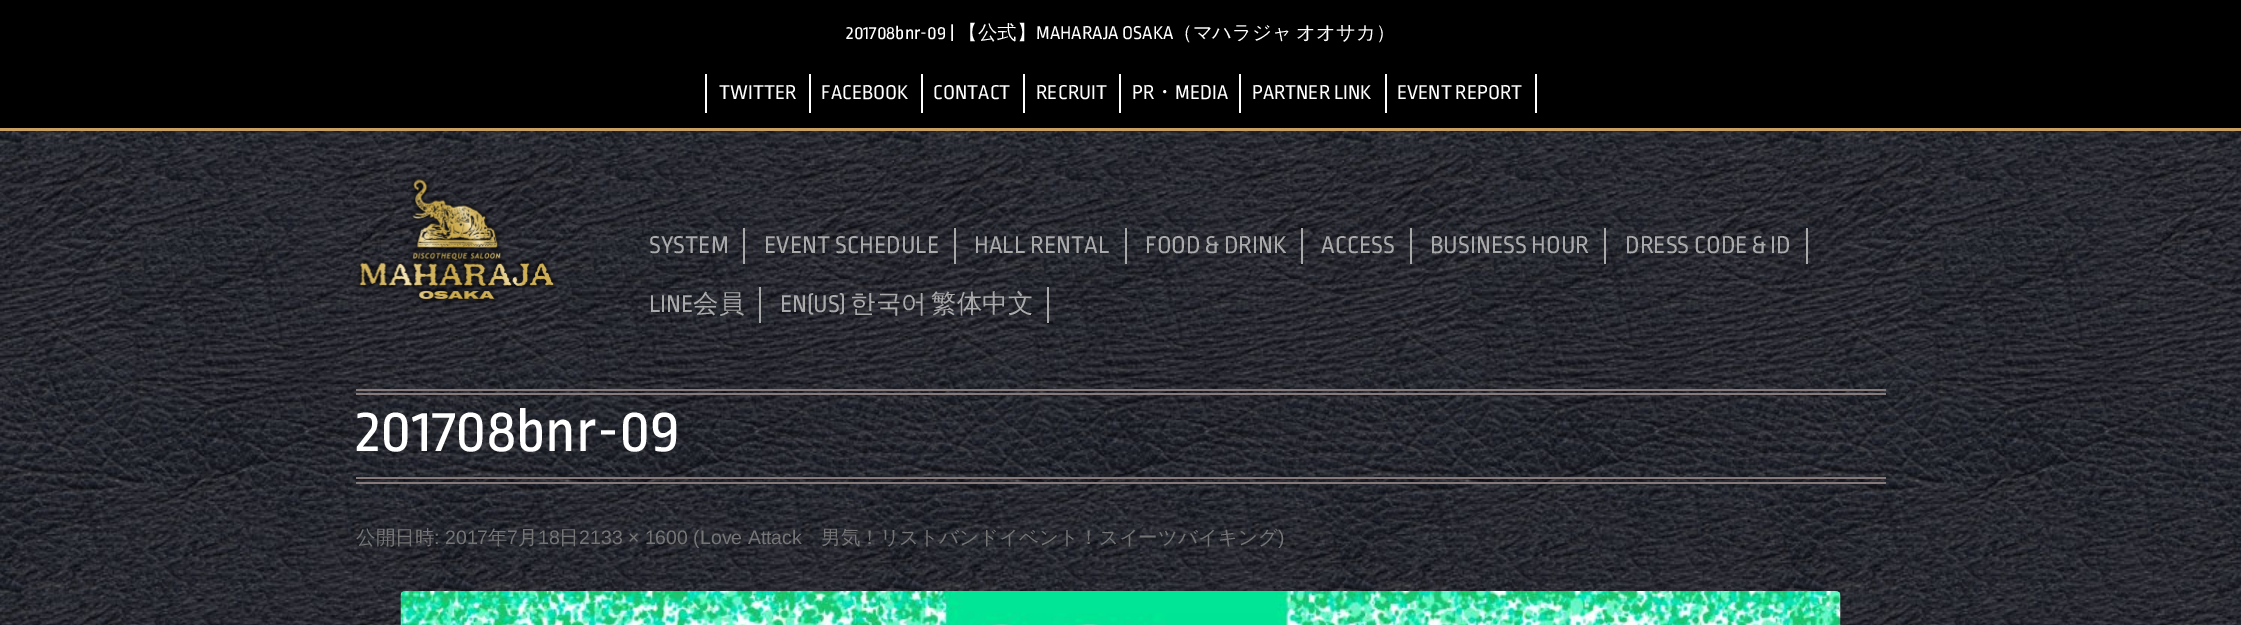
%!PS
<< /PageSize [2241 625] /PageUsesTransparency true >> setpagedevice
/rgb { dup -16 bitshift 255 div exch dup -8 bitshift 255 and 255 div exch 255 and 255 div setrgbcolor } def
/font { [ exch dup neg 0 0 3 -1 roll 0 0 ] selectfont } def
/text { moveto show } def
/alpha { dup .setfillconstantalpha .setstrokeconstantalpha } def
/roundrect { 5 dict begin { /r /h /w /y /x } { exch def } forall
  x r add y moveto x w add y 2 copy h add r arct x w add y h add x 1 index r arct
  x y h add x y r arct x y 2 copy exch w add exch r arct closepath end } def
/shadow { 12 dict begin { /a /b /q /h /w /y /x } { exch def } forall gsave /was 0 def
  9 -2 -9 { dup b mul 4 div /e exch def 1 sub .425 mul 2.718 exch exp 1 add a .99 .min exch div /now exch def
    1 1 now sub 1 was sub div sub alpha /was now def
    w h .min e 2 mul add 0 gt { x e sub y e sub w e 2 mul add h e 2 mul add
      q e add b .6 mul add w h .min 2 div e add .min 0 .max roundrect fill } if } for grestore end } def
/picture { 5 dict begin { /h /w /y /x /name } { exch def } forall
  gsave x y translate w h scale
  w h 8 [w 0 0 h 0 0] name (r) file false 3 colorimage grestore end } def
0 .pushpdf14devicefilter
0 625 translate 1 -1 scale
4 setmiterlimit
/s1 { /RopaSans-Regular 19.5 font 16#FFFFFF rgb } def
/s2 { /WenQuanYiZenHei-Medium 19.5 font 16#FFFFFF rgb } def
/s3 { /RopaSans-Regular 21 font 16#FFFFFF rgb } def
/s4 { /WenQuanYiZenHei-Medium 21 font 16#FFFFFF rgb } def
/s5 { /RopaSans-Regular 25.5 font 16#AAAAAA rgb } def
/s6 { /WenQuanYiZenHei-Medium 25.5 font 16#AAAAAA rgb } def
/s7 { /RopaSans-Regular 63 font 16#FFFFFF rgb } def
/s8 { /WenQuanYiZenHei-Medium 19.5 font 16#757575 rgb } def
/s9 { /LiberationSans-Regular 19.5 font 16#757575 rgb } def
16#FFFFFF rgb
0 0 2241 625 rectfill
(pic1.raw) 0 131 2241 494 picture
16#000000 rgb
0 0 2241 128 rectfill
16#C79F62 rgb
0 128 2241 3 rectfill
s1
(201708bnr-09 |) 846 39 text
s2
(【公式】) 958 39 text
s1
(MAHARAJA OSAKA) 1036 39 text
s2
(（マハラジャ) 1173 39 text
(オオサカ）) 1296 39 text
809 74 2 39 rectfill
705 74 2 39 rectfill
s3
(TWITTER) 719 99 text
921 74 2 39 rectfill
(FACEBOOK) 821 99 text
1023 74 2 39 rectfill
(CONTACT) 933 99 text
1119 74 2 39 rectfill
(RECRUIT) 1036 99 text
1239 74 2 39 rectfill
(PR) 1132 99 text
s4
(・) 1154 99 text
s3
(MEDIA) 1175 99 text
1385 74 2 39 rectfill
(PARTNER LINK) 1252 99 text
1535 74 2 39 rectfill
(EVENT REPORT) 1397 99 text
(pic2.raw) 356 176 201 127 picture
16#AAAAAA rgb
743 228 2 36 rectfill
s5
(SYSTEM) 649 253 text
954 228 2 36 rectfill
(EVENT SCHEDULE) 764 253 text
1125 228 2 36 rectfill
(HALL RENTAL) 974 253 text
1301 228 2 36 rectfill
(FOOD & DRINK) 1145 253 text
1410 228 2 36 rectfill
(ACCESS) 1321 253 text
1604 228 2 36 rectfill
(BUSINESS HOUR) 1430 253 text
1806 228 2 36 rectfill
(DRESS CODE & ID) 1625 253 text
759 287 2 36 rectfill
(LINE) 649 312 text
s6
(会員) 693 312 text
1047 287 2 36 rectfill
s5
(EN\(US\)) 780 312 text
/WenQuanYiZenHei-Medium 25.5 font
850 312 moveto -3 0 32 (한국어 繁体中文) widthshow
16#867979 rgb
356 389 1530 2 rectfill
356 393 1530 2 rectfill
356 477 1530 2 rectfill
356 482 1530 2 rectfill
s7
(201708bnr-09) 356 451 text
s8
(公開日時) 356 544 text
s9
(: 2017) 434 544 text
s8
(年) 488 544 text
s9
(7) 507 544 text
s8
(月) 518 544 text
s9
(18) 538 544 text
s8
(日) 559 544 text
s9
(2133 × 1600 \(Love Attack) 579 544 text
s8
(男気！リストバンドイベント！スイーツバイキング) 821 544 text
s9
(\)) 1278 544 text
16#000000 rgb
401 593 1440 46 5 3 0.2 shadow
(pic3.raw) 400 591 1441 34 picture
.poppdf14devicefilter showpage
